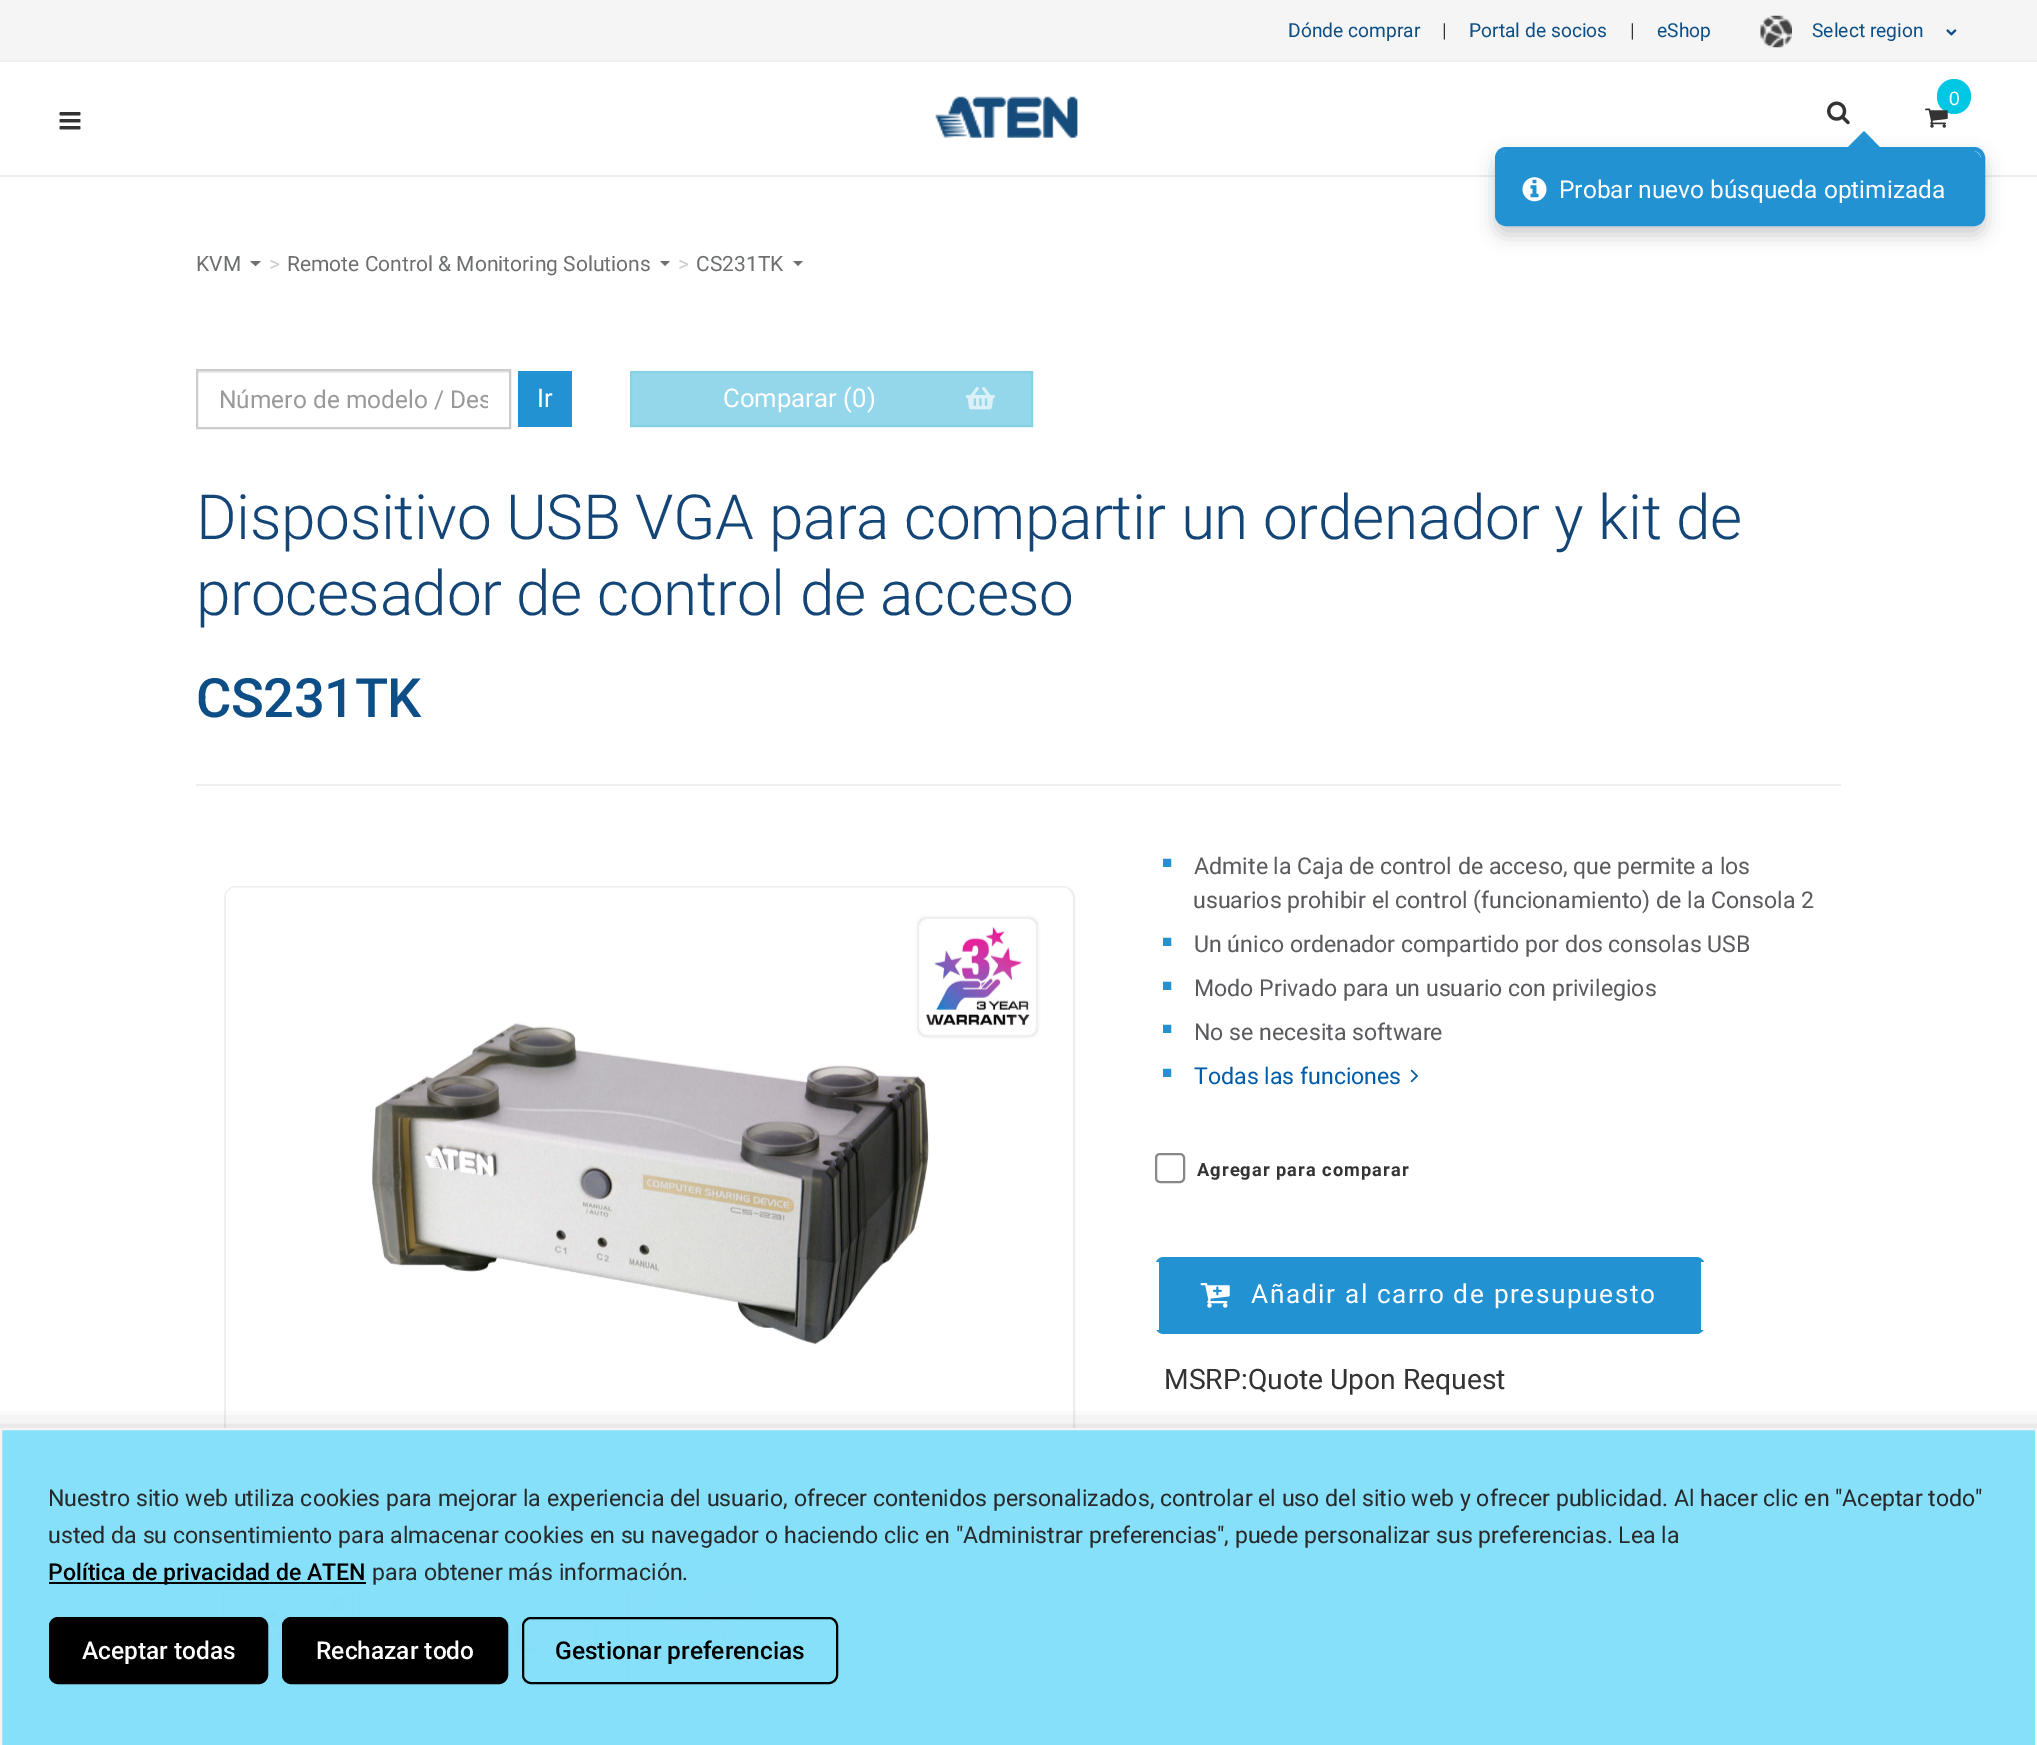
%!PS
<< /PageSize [2037 1745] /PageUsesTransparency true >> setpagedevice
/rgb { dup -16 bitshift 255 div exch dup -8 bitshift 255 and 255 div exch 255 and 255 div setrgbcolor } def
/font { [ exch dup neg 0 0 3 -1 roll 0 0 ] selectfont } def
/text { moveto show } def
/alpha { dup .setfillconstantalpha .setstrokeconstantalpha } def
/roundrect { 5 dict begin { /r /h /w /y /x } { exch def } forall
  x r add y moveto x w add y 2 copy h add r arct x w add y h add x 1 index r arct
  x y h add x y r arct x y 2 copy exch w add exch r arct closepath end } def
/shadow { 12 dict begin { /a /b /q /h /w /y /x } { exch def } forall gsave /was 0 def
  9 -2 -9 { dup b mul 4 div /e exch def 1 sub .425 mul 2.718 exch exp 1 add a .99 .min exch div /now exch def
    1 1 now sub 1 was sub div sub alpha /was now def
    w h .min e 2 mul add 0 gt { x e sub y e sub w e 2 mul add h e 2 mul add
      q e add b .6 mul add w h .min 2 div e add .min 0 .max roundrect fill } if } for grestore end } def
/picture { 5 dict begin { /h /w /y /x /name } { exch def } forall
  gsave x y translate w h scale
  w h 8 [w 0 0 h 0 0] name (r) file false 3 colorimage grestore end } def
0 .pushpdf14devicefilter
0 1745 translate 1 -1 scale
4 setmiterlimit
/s1 { /Roboto-Regular 19.25 font 16#0C4E85 rgb } def
/s2 { /Roboto-Regular 19.25 font 16#333333 rgb } def
/s3 { /LiberationSans-Regular 19.25 font 16#FFFFFF rgb } def
/s4 { /Roboto-Regular 24.5 font 16#FFFFFF rgb } def
/s5 { /Roboto-Regular 21 font 16#6C6E70 rgb } def
/s6 { /Roboto-Regular 21 font 16#CCCCCC rgb } def
/s7 { /Roboto-Regular 24.5 font 16#999999 rgb } def
/s8 { /Roboto-Regular 25.75 font 16#FFFFFF rgb } def
/s9 { /LiberationSans-Regular 17 font 16#2292D3 rgb } def
/s10 { /Roboto-Regular 23.1 font 16#5A595E rgb } def
/s11 { /Roboto-Regular 23.1 font 16#005CAA rgb } def
/s12 { /Roboto-Regular 28.25 font 16#333333 rgb } def
/s13 { /Roboto-Regular 23.1 font 16#27292A rgb } def
/s14 { /Roboto-Medium 23.1 font 16#000000 rgb } def
/s15 { /Roboto-Medium 24.5 font 16#FFFFFF rgb } def
/s16 { /Roboto-Medium 24.5 font 16#000000 rgb } def
16#FFFFFF rgb
0 0 2037 1745 rectfill
16#F5F5F5 rgb
0 0 2037 60 rectfill
16#EEEEEE rgb
0 60 2037 2 rectfill
s1
(Dónde comprar) 1288 37 text
s2
(|) 1442 37 text
s1
(Portal de socios) 1469 37 text
s2
(|) 1630 37 text
s1
(eShop) 1657 37 text
(pic1.raw) 1760 15 32 33 picture
(Select region) 1812 37 text
(pic2.raw) 1946 29 11 7 picture
16#EEEEEE rgb
0 175 2037 2 rectfill
(pic3.raw) 59 112 22 18 picture
(pic4.raw) 935 96 143 42 picture
16#00C7E4 rgb
1937 79 34 35 17 roundrect fill
s3
(0) 1949 105 text
(pic5.raw) 1925 108 23 20 picture
(pic6.raw) 1827 101 23 24 picture
16#000000 rgb
1495 156 490 79 11 9 0.2 shadow
16#FFFFFF rgb
1497 149 486 75 9 roundrect gsave fill grestore
16#2292D3 rgb
4 setlinewidth
stroke
1883 150.5 moveto 1844.5 150.5 lineto 1864 131 lineto closepath fill
1507 151 moveto 1972 151 lineto 1977 151 1981 155 1981 160 curveto 1981 222 lineto 1498 222 lineto 1498 160 lineto 1498 155 1502 151 1507 151 curveto closepath fill
(pic7.raw) 1522 177 25 25 picture
s4
(Probar nuevo búsqueda optimizada) 1559 198 text
s5
(KVM) 196 271 text
250 261 moveto 261 261 lineto 255.5 266 lineto closepath fill
s6
(>) 269 271 text
s5
(Remote Control & Monitoring Solutions) 287 271 text
660 261 moveto 670 261 lineto 665 266 lineto closepath fill
s6
(>) 678 271 text
s5
(CS231TK) 696 271 text
793 261 moveto 803 261 lineto 798 266 lineto closepath fill
16#ECECEC rgb
198 371 311 2 rectfill
16#CCCCCC rgb
2 setlinewidth
197 370 313 58 rectstroke
gsave
219 385 269 28 rectclip
s7
(Número de modelo / Des) 219 408 text
grestore
16#2292D3 rgb
518 371 54 56 rectfill
s8
(Ir) 537 407 text
16#94D6EA rgb
631 372 moveto 1032 372 lineto 1032 426 lineto 631 426 lineto closepath gsave fill grestore
16#87D1E7 rgb
stroke
s8
(Comparar \(0\)) 723 407 text
(pic8.raw) 966 386 29 24 picture
/Roboto-Light 62.2 font
16#134576 rgb
196 539 moveto -0.42 0 (Dispositivo USB VGA para compartir un ordenador y kit de) ashow
196 615 moveto -0.42 0 (procesador de control de acceso) ashow
/Roboto-Medium 54.25 font
16#0C4E85 rgb
196 717 moveto -0.42 0 (CS231TK) ashow
16#EEEEEE rgb
196 784 1645 2 rectfill
225 887 849 594 11 roundrect stroke
(pic9.raw) 226 887 844 594 picture
16#999999 rgb
223 1588 130 95 rectstroke
(pic10.raw) 223 1588 130 95 picture
16#BFBFBF rgb
358 1588 129 95 rectstroke
(pic11.raw) 358 1588 129 29 picture
493 1588 129 95 rectstroke
(pic12.raw) 493 1588 129 95 picture
628 1588 129 95 rectstroke
(pic13.raw) 628 1589 128 92 picture
s9
(■) 1162 868 text
s10
(Admite la Caja de control de acceso, que permite a los) 1194 874 text
(usuarios prohibir el control \(funcionamiento\) de la Consola 2) 1193 908 text
s9
(■) 1162 947 text
s10
(Un único ordenador compartido por dos consolas USB) 1194 952 text
s9
(■) 1162 991 text
s10
(Modo Privado para un usuario con privilegios) 1194 996 text
s9
(■) 1162 1034 text
s10
(No se necesita software) 1194 1040 text
s9
(■) 1162 1078 text
s11
(Todas las funciones) 1194 1084 text
(pic14.raw) 1410 1069 8 14 picture
16#888888 rgb
1156 1154 28 28 4 roundrect stroke
/Roboto-Bold 18.25 font
16#333333 rgb
1197 1176 moveto 1.05 0 (Agregar para comparar) ashow
16#2292D3 rgb
1155 1257 550 77 9 roundrect fill
16#FFFFFF rgb
1701 1262 4 68 rectfill
1155 1262 4 68 rectfill
(pic15.raw) 1200 1283 30 25 picture
/Roboto-Regular 26.25 font
1251 1303 moveto 1.6 0 (Añadir al carro de presupuesto) ashow
s12
(MSRP:Quote Upon Request) 1164 1389 text
gsave
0 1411 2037 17 rectclip
16#000000 rgb
-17 1437 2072 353 0 17.5 0.3 shadow
grestore
0.98 alpha
16#85DFF9 rgb
1 1429 moveto 2036 1429 lineto 2036 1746 lineto 1 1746 lineto closepath fill
1 alpha
16#F4F4F4 rgb
1 1429 moveto 2036 1429 lineto 2036 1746 lineto 1 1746 lineto closepath stroke
s13
(Nuestro sitio web utiliza cookies para mejorar la experiencia del usuario, ofrecer contenidos personalizados, controlar el uso del sitio web y ofrecer publicidad. Al hacer clic en "Aceptar todo") 48 1506 text
(usted da su consentimiento para almacenar cookies en su navegador o haciendo clic en "Administrar preferencias", puede personalizar sus preferencias. Lea la) 48 1543 text
16#000000 rgb
49 1582 317 2 rectfill
s14
(Política de privacidad de ATEN) 48 1580 text
s13
(para obtener más información.) 372 1580 text
16#000000 rgb
50 1618 217 65 8 roundrect gsave fill grestore
stroke
s15
(Aceptar todas) 82 1659 text
16#000000 rgb
283 1618 224 65 8 roundrect gsave fill grestore
stroke
s15
(Rechazar todo) 316 1659 text
16#000000 rgb
523 1618 314 65 8 roundrect stroke
(Gestionar preferencias) 555 1659 text
.poppdf14devicefilter showpage
